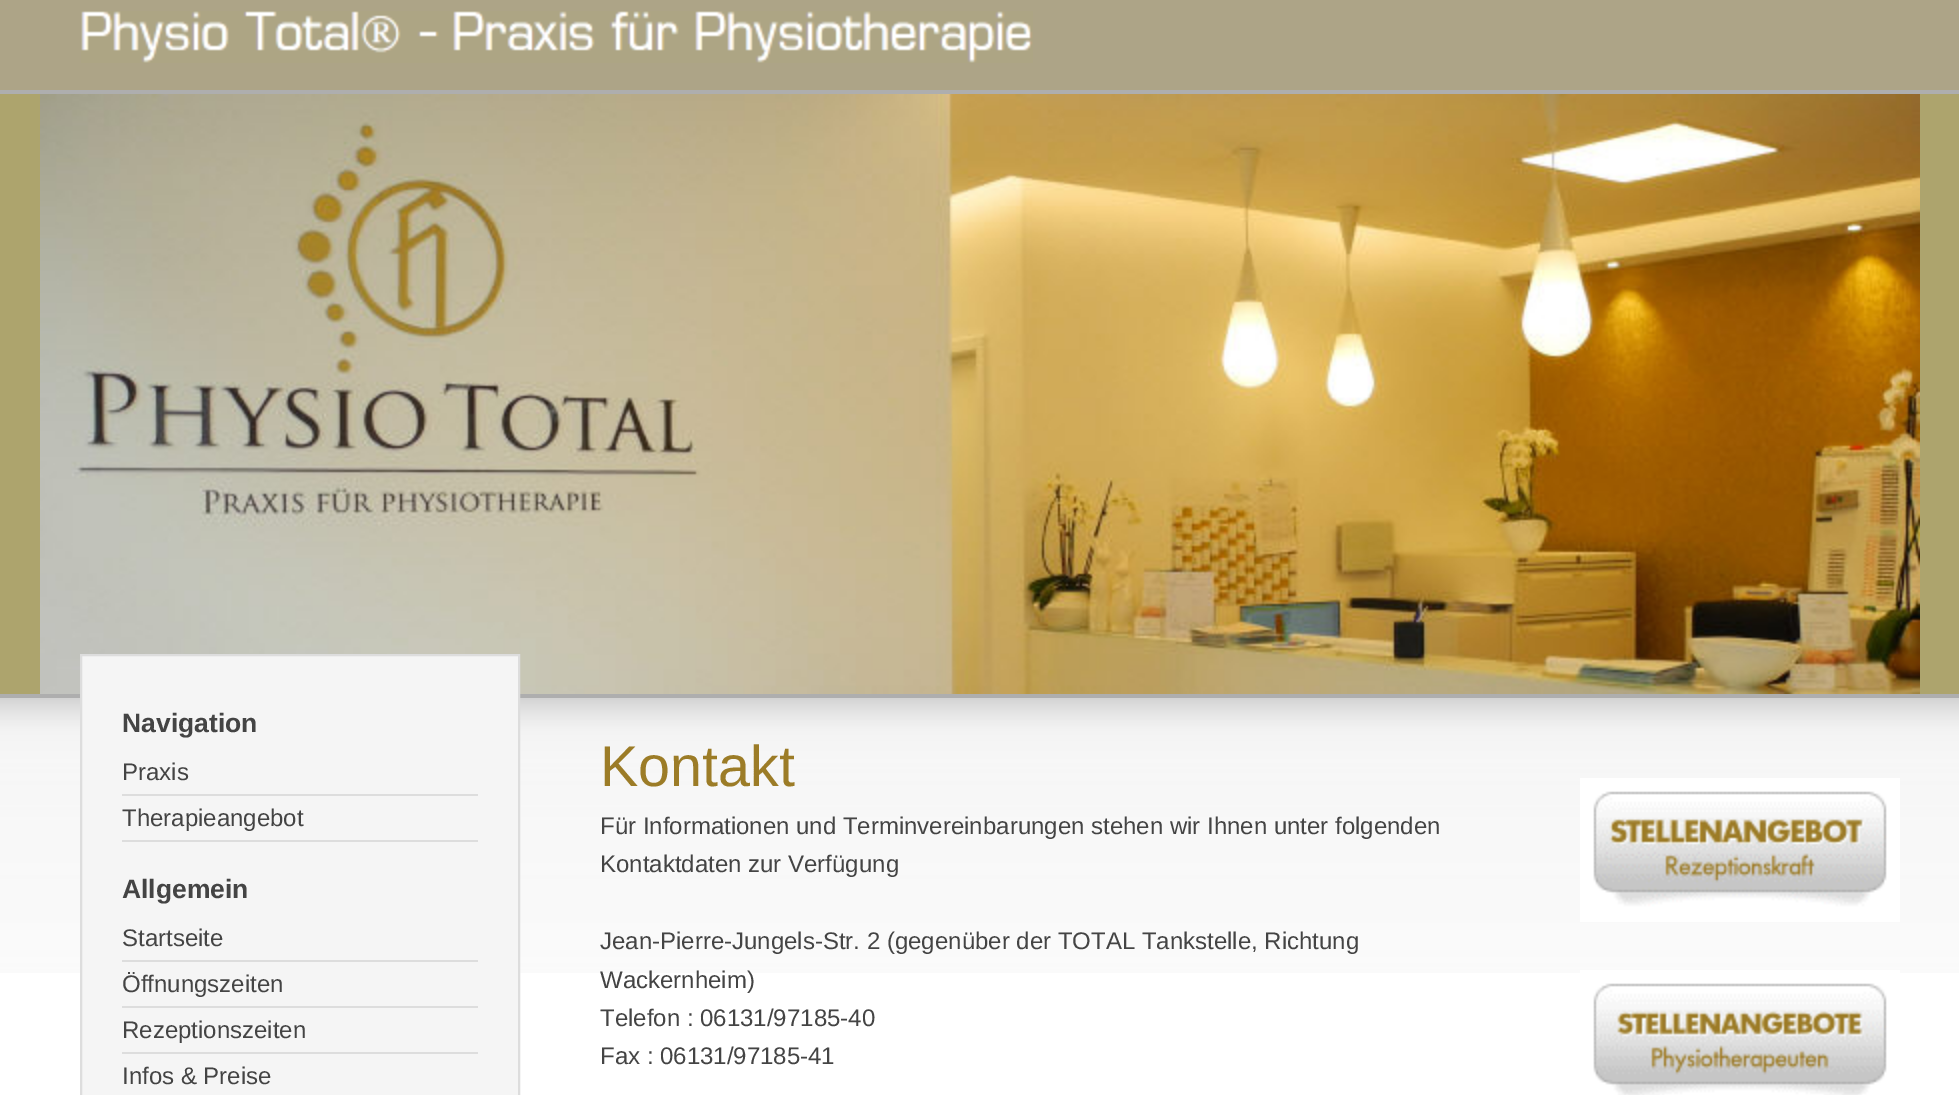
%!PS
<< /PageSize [1959 1095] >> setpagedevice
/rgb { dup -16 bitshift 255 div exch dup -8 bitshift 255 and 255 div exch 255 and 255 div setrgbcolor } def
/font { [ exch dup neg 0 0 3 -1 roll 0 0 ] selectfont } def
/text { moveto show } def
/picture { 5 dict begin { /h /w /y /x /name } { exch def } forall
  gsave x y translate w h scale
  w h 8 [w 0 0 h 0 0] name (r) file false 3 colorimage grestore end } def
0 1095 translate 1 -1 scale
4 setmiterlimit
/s1 { /LiberationSans-Bold 26.5 font 16#444444 rgb } def
/s2 { /LiberationSans-Regular 24 font 16#444444 rgb } def
/s3 { /LiberationSans-Regular 57.5 font 16#9C7C27 rgb } def
16#FFFFFF rgb
0 0 1959 1095 rectfill
(pic1.raw) 0 698 1959 275 picture
16#ADA487 rgb
0 0 1959 90 rectfill
(pic2.raw) 81 11 952 52 picture
16#ADA46D rgb
0 94 1959 600 rectfill
(pic3.raw) 40 94 1880 600 picture
16#AEAEAE rgb
0 90 1959 4 rectfill
0 694 1959 4 rectfill
16#F5F5F5 rgb
81 655 moveto 519 655 lineto 519 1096 lineto 81 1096 lineto closepath gsave fill grestore
16#DDDDDD rgb
2 setlinewidth
stroke
s1
(Navigation) 122 732 text
16#DDDDDD rgb
122 794 356 2 rectfill
s2
(Praxis) 122 780 text
16#DDDDDD rgb
122 840 356 2 rectfill
s2
(Therapieangebot) 122 826 text
s1
(Allgemein) 122 898 text
16#DDDDDD rgb
122 960 356 2 rectfill
s2
(Startseite) 122 946 text
16#DDDDDD rgb
122 1006 356 2 rectfill
s2
(Öffnungszeiten) 122 992 text
16#DDDDDD rgb
122 1052 356 2 rectfill
s2
(Rezeptionszeiten) 122 1038 text
(Infos & Preise) 122 1084 text
s3
(Kontakt) 600 786 text
s2
(Für Informationen und Terminvereinbarungen stehen wir Ihnen unter folgenden) 600 834 text
(Kontaktdaten zur Verfügung) 600 872 text
(Jean-Pierre-Jungels-Str. 2 \(gegenüber der TOTAL Tankstelle, Richtung) 600 949 text
(Wackernheim\)) 600 988 text
(Telefon : 06131/97185-40) 600 1026 text
(Fax : 06131/97185-41) 600 1064 text
(pic4.raw) 1580 778 320 144 picture
(pic5.raw) 1580 970 320 125 picture
showpage
